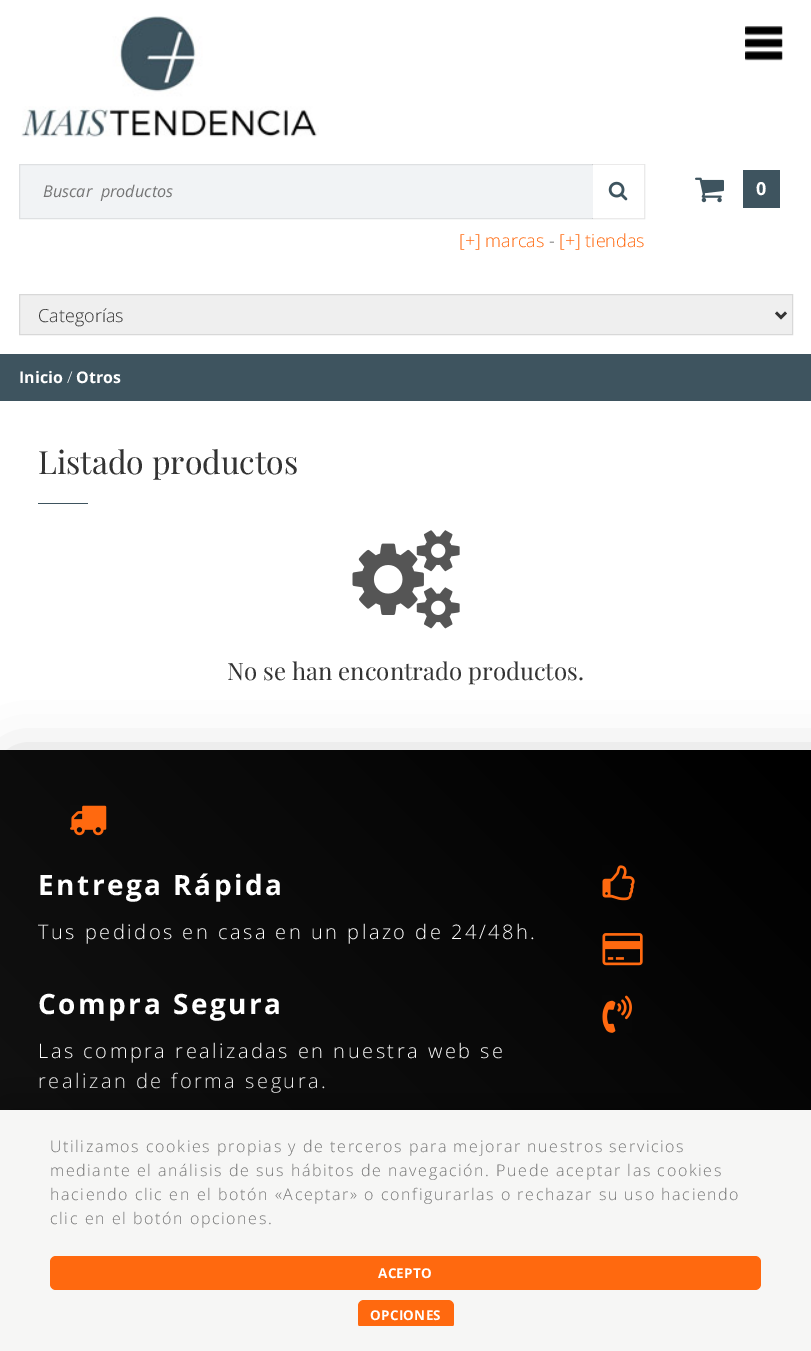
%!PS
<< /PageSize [811 1351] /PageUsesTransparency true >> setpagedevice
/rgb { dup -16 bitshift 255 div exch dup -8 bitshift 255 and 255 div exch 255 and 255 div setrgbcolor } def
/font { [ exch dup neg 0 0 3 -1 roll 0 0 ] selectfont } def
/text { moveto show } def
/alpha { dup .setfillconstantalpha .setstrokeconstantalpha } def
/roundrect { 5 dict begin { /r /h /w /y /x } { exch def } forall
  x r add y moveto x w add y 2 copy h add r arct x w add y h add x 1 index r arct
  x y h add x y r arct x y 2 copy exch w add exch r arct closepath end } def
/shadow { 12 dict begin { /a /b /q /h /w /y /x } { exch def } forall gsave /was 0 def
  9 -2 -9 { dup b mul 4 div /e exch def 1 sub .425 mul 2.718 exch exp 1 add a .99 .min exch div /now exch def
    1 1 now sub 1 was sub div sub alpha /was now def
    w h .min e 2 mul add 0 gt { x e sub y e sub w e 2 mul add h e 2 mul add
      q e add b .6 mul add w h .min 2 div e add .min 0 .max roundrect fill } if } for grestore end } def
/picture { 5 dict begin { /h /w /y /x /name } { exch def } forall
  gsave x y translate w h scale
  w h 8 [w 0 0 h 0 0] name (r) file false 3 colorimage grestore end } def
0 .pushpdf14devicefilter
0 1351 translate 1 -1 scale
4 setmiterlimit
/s1 { /OpenSans-Italic 16.25 font 16#757575 rgb } def
/s2 { /OpenSans-Light 18 font 16#FF690F rgb } def
/s3 { /OpenSans-Light 18 font 16#555555 rgb } def
/s4 { /OpenSans-Bold 18 font 16#FFFFFF rgb } def
/s5 { /OpenSans-Light 18 font 16#333333 rgb } def
/s6 { /OpenSans-Bold 16 font 16#FFFFFF rgb } def
/s7 { /OpenSans-Light 16 font 16#FFFFFF rgb } def
/s8 { /PlayfairDisplay-Regular 32 font 16#333333 rgb } def
/s9 { /PlayfairDisplay-Regular 24 font 16#333333 rgb } def
16#FFFFFF rgb
0 0 811 1351 rectfill
(pic1.raw) 21 16 298 121 picture
(pic2.raw) 745 26 38 35 picture
16#F1F3F5 rgb
20 165 573 53 rectfill
16#DEE0E2 rgb
19.5 164.5 625 54 rectstroke
s1
(Buscar  productos) 43 197 text
16#FFFFFF rgb
593 164 52 55 rectfill
0.1 alpha
16#363134 rgb
592 164 moveto 645 164 lineto 644 165 lineto 592 165 lineto closepath fill
645 164 moveto 645 219 lineto 644 218 lineto 644 165 lineto closepath fill
645 219 moveto 592 219 lineto 592 218 lineto 644 218 lineto closepath fill
1 alpha
(pic3.raw) 608 181 20 20 picture
s2
([+] marcas) 459 247 text
s3
(-) 549 247 text
s2
([+] tiendas) 559 247 text
(pic4.raw) 695 177 29 26 picture
16#3E545F rgb
743 170 37 38 rectfill
s4
(0) 756 195 text
16#EFEFEF rgb
19.5 294.5 moveto 792.5 294.5 lineto 792.5 334.5 lineto 19.5 334.5 lineto closepath gsave fill grestore
16#D8D8D8 rgb
stroke
16#333333 rgb
2.5 setlinewidth
776 312.5 moveto 781 317.5 lineto 786 312.5 lineto stroke
s5
(Categorías) 38 322 text
16#3E545F rgb
0 354 811 47 rectfill
s6
(Inicio) 19 383 text
s7
(/) 67 383 text
s6
(Otros) 76 383 text
s8
(Listado productos) 38 474 text
16#3E545F rgb
38 503 50 1 rectfill
(pic5.raw) 352 530 108 99 picture
16#C1C1C1 rgb
13 763 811 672 0 28 1 shadow
s9
(No se han encontrado productos.) 227 680 text
gsave 0 750 moveto 811 750 lineto 811 1110 lineto 0 1110 lineto closepath clip newpath
<< /ShadingType 2 /ColorSpace /DeviceRGB /Coords [26 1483 785 724] /Extend [true true] /Function << /FunctionType 3 /Domain [0 1] /Functions [<< /FunctionType 2 /Domain [0 1] /C0 [0.086 0.086 0.086] /C1 [0.086 0.086 0.086] /N 1 >> << /FunctionType 2 /Domain [0 1] /C0 [0.086 0.086 0.086] /C1 [0 0 0] /N 1 >>] /Bounds [0.01] /Encode [0 1 0 1] >> >> shfill grestore
(pic6.raw) 70 805 37 31 picture
/OpenSans-Bold 28 font
16#FFFFFF rgb
38 895 moveto 2.5 0 (Entrega Rápida) ashow
/OpenSans-Light 20 font
38 939 moveto 2.5 0 (Tus pedidos en casa en un plazo de 24/48h.) ashow
(pic7.raw) 602 933 41 33 picture
(pic8.raw) 602 865 33 36 picture
/OpenSans-Bold 28 font
38 1014 moveto 2.5 0 (Compra Segura) ashow
/OpenSans-Light 20 font
38 1058 moveto 2.5 0 (Las compra realizadas en nuestra web se) ashow
38 1088 moveto 2.5 0 (realizan de forma segura.) ashow
(pic9.raw) 602 995 30 38 picture
16#000000 rgb
0 1116 811 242 0 31 0.5 shadow
16#F6F6F5 rgb
0 1110 811 241 rectfill
/OpenSans-Light 16 font
16#757575 rgb
50 1152 moveto 1.6 0 (Utilizamos cookies propias y de terceros para mejorar nuestros servicios) ashow
50 1176 moveto 1.6 0 (mediante el análisis de sus hábitos de navegación. Puede aceptar las cookies) ashow
50 1200 moveto 1.6 0 (haciendo clic en el botón «Aceptar» o configurarlas o rechazar su uso haciendo) ashow
50 1224 moveto 1.6 0 (clic en el botón opciones.) ashow
16#FF690F rgb
50 1256 711 34 6 roundrect fill
/OpenSans-Bold 13.5 font
16#FFFFFF rgb
378 1278 moveto 0.25 0 (ACEPTO) ashow
gsave
50 1244 711 82 rectclip
16#FF690F rgb
358 1300 96 29 6 roundrect fill
grestore
370 1320 moveto 0.25 0 (OPCIONES) ashow
.poppdf14devicefilter showpage
